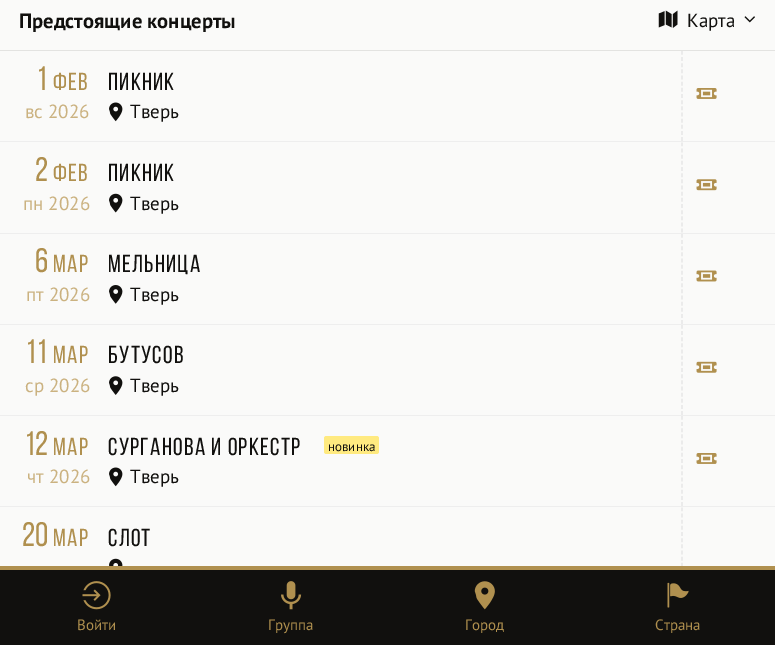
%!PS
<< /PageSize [775 645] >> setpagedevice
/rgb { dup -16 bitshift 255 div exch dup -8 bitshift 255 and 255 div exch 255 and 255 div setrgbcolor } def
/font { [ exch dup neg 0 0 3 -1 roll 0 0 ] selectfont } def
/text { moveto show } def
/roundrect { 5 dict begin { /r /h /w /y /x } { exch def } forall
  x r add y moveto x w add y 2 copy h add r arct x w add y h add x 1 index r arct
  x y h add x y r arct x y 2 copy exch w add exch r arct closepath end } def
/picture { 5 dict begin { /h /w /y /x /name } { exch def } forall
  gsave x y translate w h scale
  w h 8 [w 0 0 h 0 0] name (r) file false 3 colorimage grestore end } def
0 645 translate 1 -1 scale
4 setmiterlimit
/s1 { /PTSans-Bold 20.6 font 16#11100E rgb } def
/s2 { /PTSans-Regular 19 font 16#11100E rgb } def
/s3 { /BebasNeue-Regular 34 font 16#B0904F rgb } def
/s4 { /PTSans-Regular 19 font 16#CBB280 rgb } def
/s5 { /PTSans-Regular 13 font 16#11100E rgb } def
/s6 { /PTSans-Regular 15 font 16#B0904F rgb } def
16#FAFAF9 rgb
0 0 775 645 rectfill
16#E3E3E1 rgb
0 50 775 1 rectfill
s1
(Предстоящие концерты) 19 28 text
(pic1.raw) 658 10 20 18 picture
s2
(Карта) 687 27 text
(pic2.raw) 744 16 11 7 picture
16#EEEEEE rgb
0 141 775 1 rectfill
s3
(1) 36 90 text
/BebasNeue-Regular 24.5 font
53 90 moveto 1.25 0 (фев) ashow
s4
(вс 2026) 25 118 text
/BebasNeue-Regular 24.5 font
16#11100E rgb
108 90 moveto 1.25 0 (Пикник) ashow
(pic3.raw) 109 102 14 20 picture
s2
(Тверь) 130 118 text
16#E6E6E6 rgb
1.2 setlinewidth
[3.75 2.41] 0 setdash
682 51 moveto 682 141 lineto stroke
(pic4.raw) 696 88 21 11 picture
16#EEEEEE rgb
0 233 775 1 rectfill
s3
(2) 35 181 text
/BebasNeue-Regular 24.5 font
53 181 moveto 1.25 0 (фев) ashow
s4
(пн 2026) 23 210 text
/BebasNeue-Regular 24.5 font
16#11100E rgb
108 181 moveto 1.25 0 (Пикник) ashow
(pic5.raw) 109 193 14 20 picture
s2
(Тверь) 130 210 text
16#E6E6E6 rgb
682 142.5 moveto 682 232.5 lineto stroke
(pic6.raw) 696 179 21 12 picture
16#EEEEEE rgb
0 324 775 1 rectfill
s3
(6) 35 272 text
/BebasNeue-Regular 24.5 font
53 272 moveto 1.25 0 (мар) ashow
s4
(пт 2026) 26 301 text
/BebasNeue-Regular 24.5 font
16#11100E rgb
108 272 moveto 1.25 0 (Мельница) ashow
(pic7.raw) 109 285 14 19 picture
s2
(Тверь) 130 301 text
16#E6E6E6 rgb
682 234 moveto 682 324 lineto stroke
(pic8.raw) 696 270 21 12 picture
16#EEEEEE rgb
0 415 775 1 rectfill
s3
(11) 25 363 text
/BebasNeue-Regular 24.5 font
53 363 moveto 1.25 0 (мар) ashow
s4
(ср 2026) 25 392 text
/BebasNeue-Regular 24.5 font
16#11100E rgb
108 363 moveto 1.25 0 (Бутусов) ashow
(pic9.raw) 109 376 14 19 picture
s2
(Тверь) 130 392 text
16#E6E6E6 rgb
682 325 moveto 682 415 lineto stroke
(pic10.raw) 696 361 21 12 picture
16#EEEEEE rgb
0 506 775 1 rectfill
s3
(12) 24 455 text
/BebasNeue-Regular 24.5 font
53 455 moveto 1.25 0 (мар) ashow
s4
(чт 2026) 27 483 text
/BebasNeue-Regular 24.5 font
16#11100E rgb
108 455 moveto 1.25 0 (Сурганова и Оркестр) ashow
16#FFEA80 rgb
324 436 55 18 2.5 roundrect fill
s5
(новинка) 328 451 text
(pic3.raw) 109 467 14 20 picture
s2
(Тверь) 130 483 text
16#E6E6E6 rgb
682 416 moveto 682 506 lineto stroke
(pic4.raw) 696 453 21 11 picture
s3
(20) 22 546 text
/BebasNeue-Regular 24.5 font
53 546 moveto 1.25 0 (мар) ashow
16#11100E rgb
108 546 moveto 1.25 0 (Слот) ashow
(pic11.raw) 109 558 14 8 picture
16#E6E6E6 rgb
682 507.5 moveto 682 597.5 lineto stroke
16#11100E rgb
0 570 775 75 rectfill
16#B0904F rgb
0 566 775 4 rectfill
(pic12.raw) 82 581 29 29 picture
s6
(Войти) 77 630 text
(pic13.raw) 281 581 21 29 picture
(Группа) 268 630 text
(pic14.raw) 474 581 21 29 picture
(Город) 465 630 text
(pic15.raw) 667 582 22 26 picture
(Страна) 655 630 text
showpage
